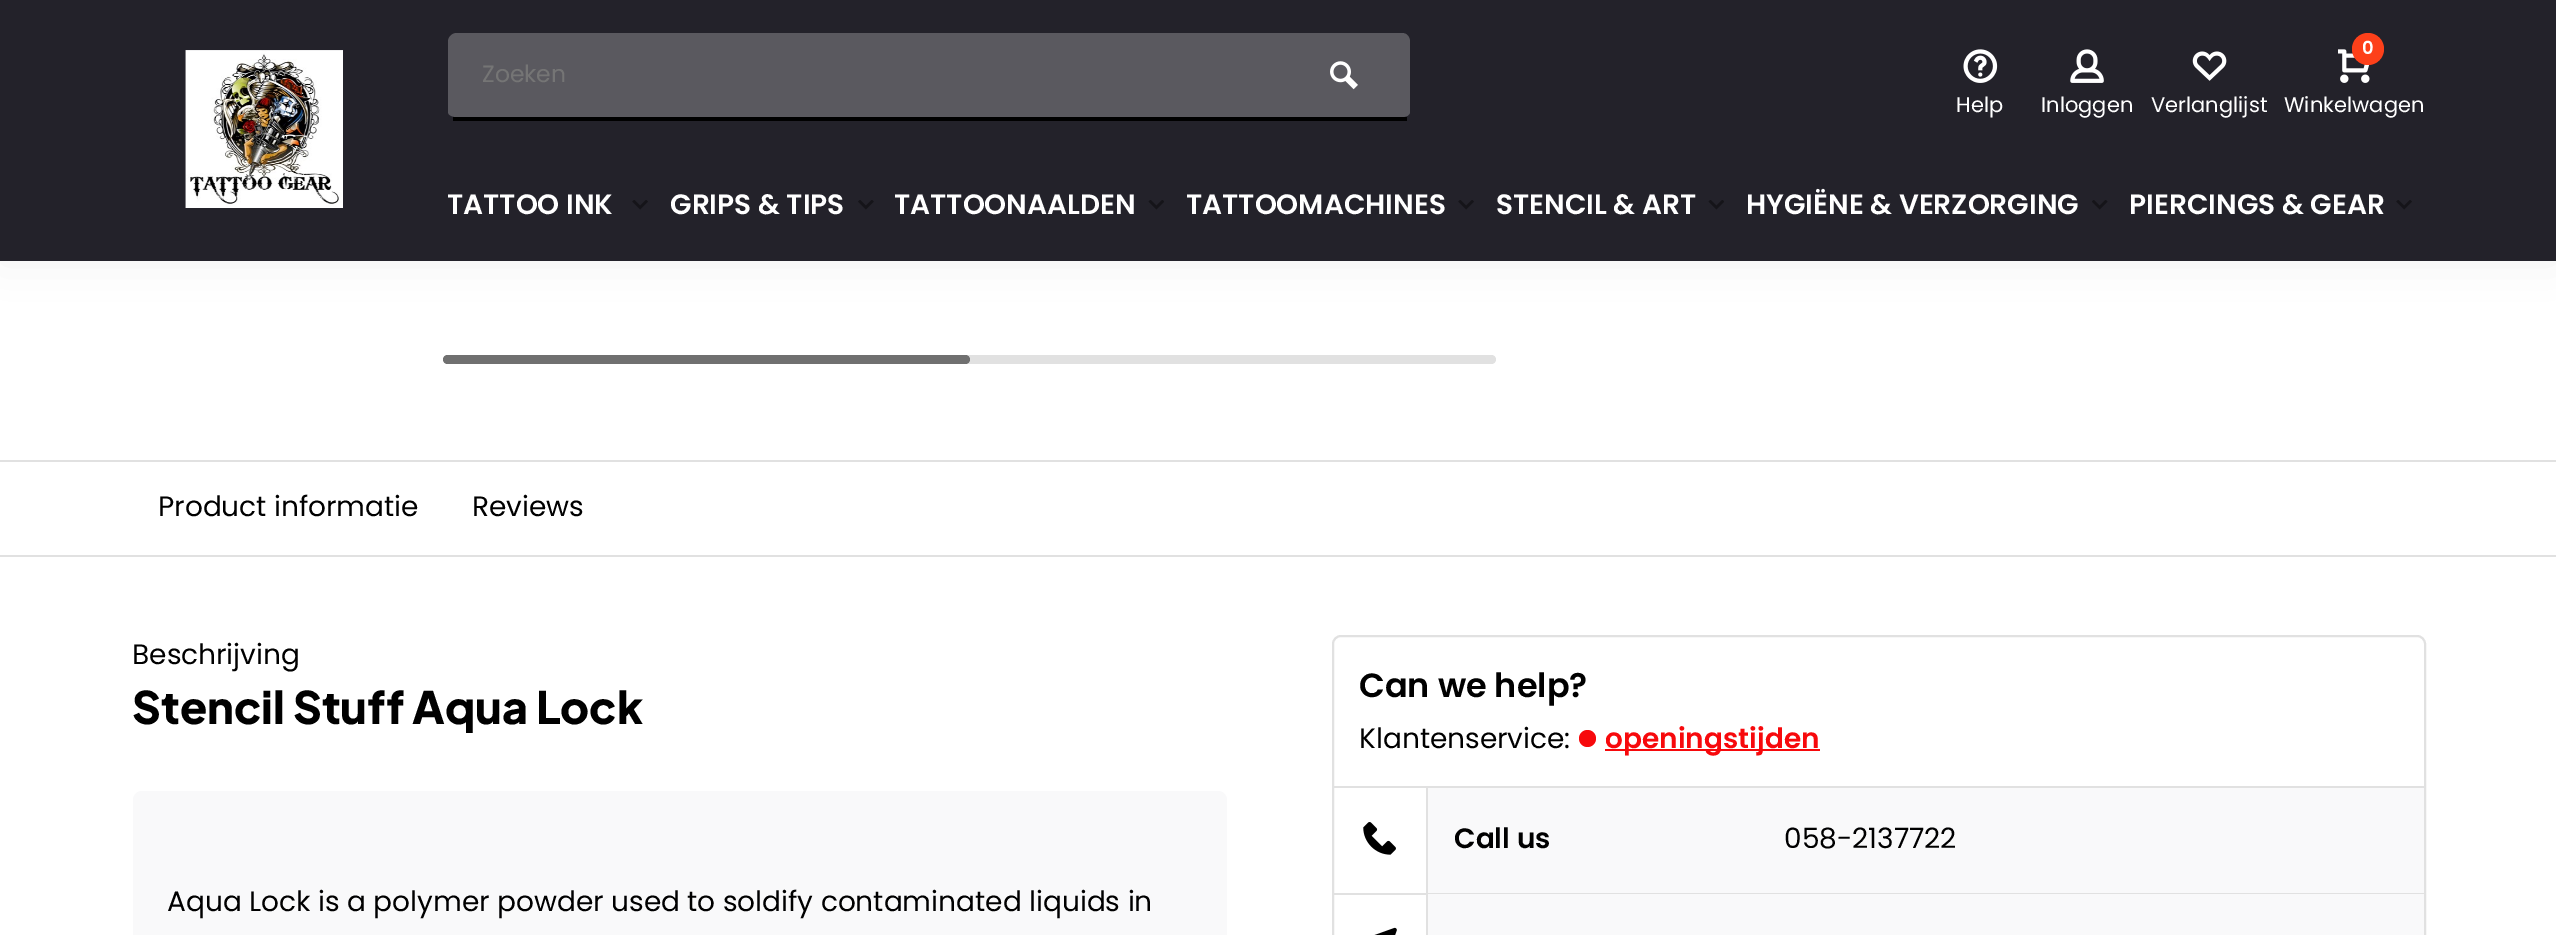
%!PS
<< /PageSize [2556 935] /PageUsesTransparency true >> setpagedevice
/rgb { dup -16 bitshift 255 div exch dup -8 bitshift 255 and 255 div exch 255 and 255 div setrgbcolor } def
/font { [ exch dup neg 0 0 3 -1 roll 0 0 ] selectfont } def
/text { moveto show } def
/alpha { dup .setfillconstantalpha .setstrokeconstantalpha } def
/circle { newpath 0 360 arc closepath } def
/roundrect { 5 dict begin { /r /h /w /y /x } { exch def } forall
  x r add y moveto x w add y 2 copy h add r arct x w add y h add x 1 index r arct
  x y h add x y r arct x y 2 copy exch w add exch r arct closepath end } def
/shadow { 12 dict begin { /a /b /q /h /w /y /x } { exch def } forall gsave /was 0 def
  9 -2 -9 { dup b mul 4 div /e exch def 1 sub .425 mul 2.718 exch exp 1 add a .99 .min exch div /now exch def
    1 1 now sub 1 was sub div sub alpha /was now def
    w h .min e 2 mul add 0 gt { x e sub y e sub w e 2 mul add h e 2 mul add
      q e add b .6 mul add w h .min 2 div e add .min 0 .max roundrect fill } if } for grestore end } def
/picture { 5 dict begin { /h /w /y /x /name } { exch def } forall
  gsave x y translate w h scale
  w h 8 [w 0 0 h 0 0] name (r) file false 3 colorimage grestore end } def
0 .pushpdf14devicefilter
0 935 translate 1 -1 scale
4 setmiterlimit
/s1 { /Poppins-Regular 23.5 font 16#757575 rgb } def
/s2 { /Poppins-Regular 21 font 16#FFFFFF rgb } def
/s3 { /Poppins-SemiBold 18 font 16#FFFFFF rgb } def
/s4 { /Poppins-SemiBold 28 font 16#FFFFFF rgb } def
/s5 { /Poppins-Regular 28 font 16#000000 rgb } def
/s6 { /PlusJakartaSans-ExtraBold 44.75 font 16#000000 rgb } def
/s7 { /Poppins-SemiBold 33.5 font 16#000000 rgb } def
/s8 { /Poppins-SemiBold 28 font 16#F7090C rgb } def
/s9 { /Poppins-SemiBold 28 font 16#000000 rgb } def
16#FFFFFF rgb
0 0 2556 935 rectfill
16#000000 rgb
0 0 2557 263 0 22 0.05 shadow
16#23222A rgb
0 0 2556 261 rectfill
(pic1.raw) 185 50 158 158 picture
16#5A595F rgb
457 33 moveto 1278 33 lineto 1278 117 lineto 457 117 lineto 452 117 448 115 448 112 curveto 448 42 lineto 448 37 452 33 457 33 curveto closepath fill
16#000000 rgb
453 117 954 4 rectfill
s1
(Zoeken) 482 82 text
16#5A595F rgb
1278 33 moveto 1402 33 lineto 1407 33 1410 37 1410 42 curveto 1410 112 lineto 1410 115 1407 117 1402 117 curveto 1278 117 lineto closepath fill
(pic2.raw) 1330 61 28 29 picture
(pic3.raw) 1963 49 35 34 picture
s2
(Help) 1956 112 text
(pic4.raw) 2070 49 34 34 picture
(Inloggen) 2041 112 text
(pic5.raw) 2192 51 35 30 picture
(Verlanglijst) 2151 112 text
(pic6.raw) 2338 49 32 34 picture
16#FD401A rgb
2368 49 16 circle fill
s3
(0) 2362 54 text
s2
(Winkelwagen) 2284 112 text
s4
(TATTOO INK) 447 214 text
(pic7.raw) 632 200 16 10 picture
(GRIPS & TIPS) 670 214 text
(pic8.raw) 858 200 16 10 picture
(TATTOONAALDEN) 894 214 text
(pic9.raw) 1148 200 16 10 picture
(TATTOOMACHINES) 1186 214 text
(pic7.raw) 1458 200 16 10 picture
(STENCIL & ART) 1496 214 text
(pic9.raw) 1708 200 16 10 picture
(HYGIËNE & VERZORGING) 1746 214 text
(pic10.raw) 2092 200 16 10 picture
(PIERCINGS & GEAR) 2129 214 text
(pic7.raw) 2396 200 16 10 picture
16#E1E1E1 rgb
443 355 1053 9 4.5 roundrect fill
0.5 alpha
16#000000 rgb
443 355 527 9 4.5 roundrect fill
1 alpha
16#E1E1E1 rgb
0 460 2556 2 rectfill
0 555 2556 2 rectfill
s5
(Product informatie) 158 516 text
(Reviews) 472 516 text
(Beschrijving) 132 664 text
s6
(Stencil Stuff Aqua Lock) 132 724 text
16#F9F9FA rgb
133 791 1094 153 9 roundrect fill
s5
(Aqua Lock is a polymer powder used to soldify contaminated liquids in) 167 911 text
16#E1E1E1 rgb
2 setlinewidth
1333 636 1092 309 8 roundrect stroke
s7
(Can we help?) 1359 697 text
s5
(Klantenservice:) 1359 748 text
16#F7090C rgb
1587.5 738.5 8.5 circle fill
1605 749 215 2 rectfill
s8
(openingstijden) 1605 748 text
16#E1E1E1 rgb
1334 786 1090 2 rectfill
1334 893 1090 2 rectfill
1426 788 2 105 rectfill
(pic11.raw) 1363 822 33 33 picture
16#F9F9FA rgb
1428 788 996 105 rectfill
s9
(Call us) 1454 848 text
s5
(058-2137722) 1784 848 text
16#E1E1E1 rgb
1426 894 2 41 rectfill
(pic12.raw) 1374 927 23 8 picture
16#F9F9FA rgb
1428 894 996 41 rectfill
.poppdf14devicefilter showpage
